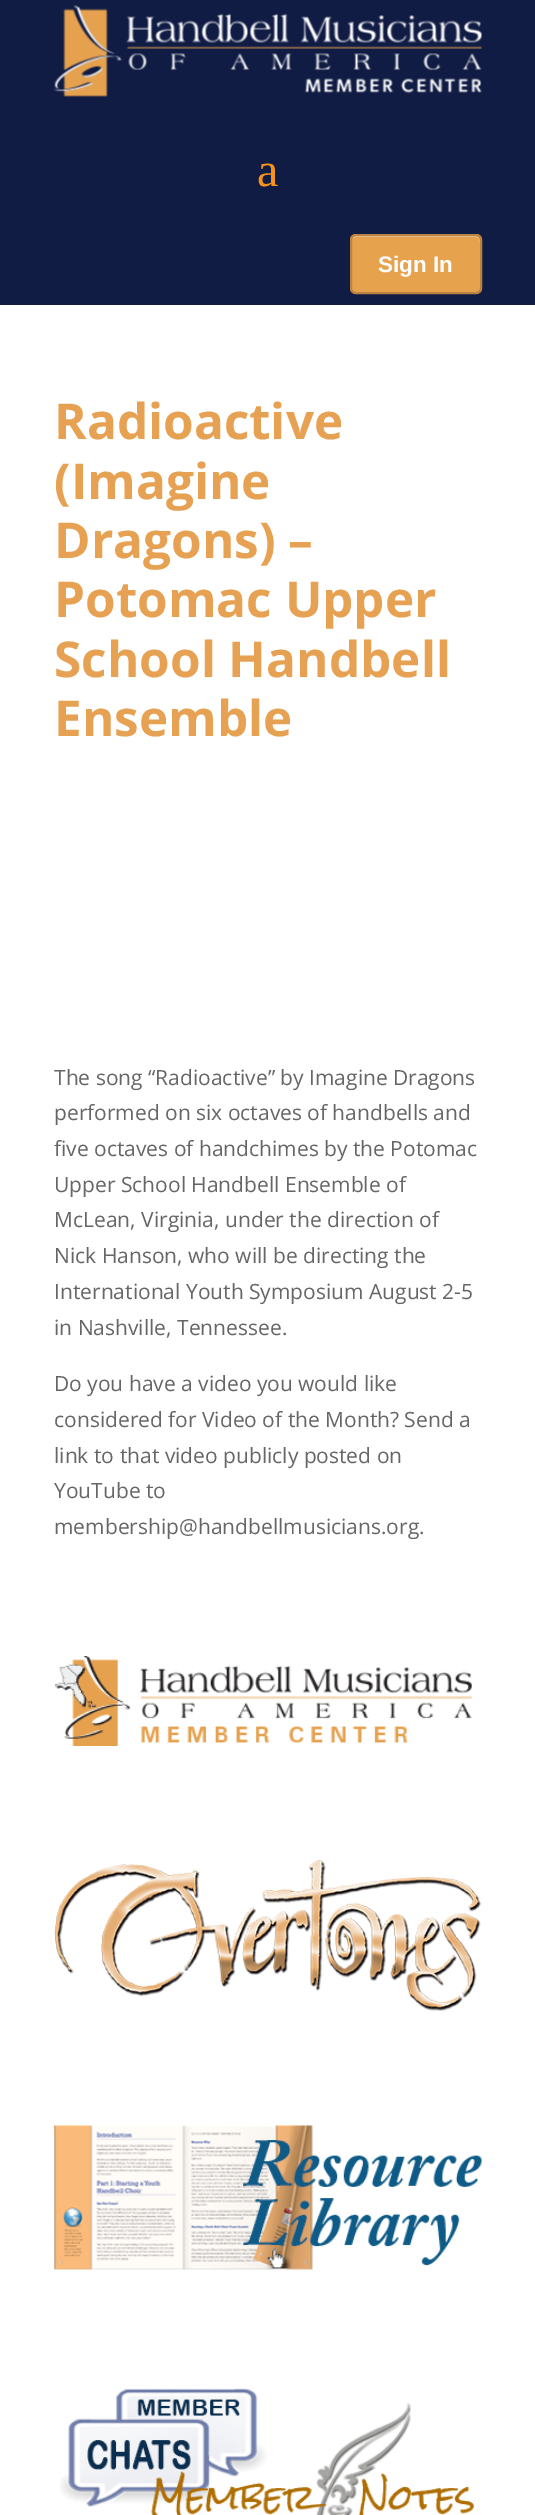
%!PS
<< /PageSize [535 2515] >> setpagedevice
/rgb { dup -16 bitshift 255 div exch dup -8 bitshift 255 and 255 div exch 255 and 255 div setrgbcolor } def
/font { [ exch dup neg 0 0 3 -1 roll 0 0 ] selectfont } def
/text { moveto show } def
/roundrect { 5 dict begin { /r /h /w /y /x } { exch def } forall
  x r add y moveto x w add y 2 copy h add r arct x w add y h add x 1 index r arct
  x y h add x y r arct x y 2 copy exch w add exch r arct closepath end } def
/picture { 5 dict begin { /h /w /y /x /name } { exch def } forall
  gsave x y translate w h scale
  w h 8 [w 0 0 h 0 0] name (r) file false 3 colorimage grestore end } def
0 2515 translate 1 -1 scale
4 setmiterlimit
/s1 { /LiberationSerif-Regular 48 font 16#F7921D rgb } def
/s2 { /LiberationSans-Bold 22.5 font 16#FFFFFF rgb } def
/s3 { /OpenSans-Bold 49.5 font 16#E7A153 rgb } def
/s4 { /OpenSans-Regular 21 font 16#666666 rgb } def
16#FFFFFF rgb
0 0 535 2515 rectfill
16#111C44 rgb
0 0 535 305 rectfill
(pic1.raw) 53 5 429 92 picture
s1
(a) 257 186 text
16#E7A24D rgb
350 234 132 60 6 roundrect fill
16#F2CDA0 rgb
356 237 moveto 476 237 lineto 478 237 480 239 480 242 curveto 480 231 459 236 455 236 curveto 376 236 lineto 372 236 351 231 351 242 curveto 351 239 353 237 356 237 curveto closepath fill
16#B98441 rgb
2 setlinewidth
351 235 130 58 5 roundrect stroke
s2
(Sign In) 378 272 text
s3
(Radioactive) 54 439 text
(\(Imagine) 54 499 text
(Dragons\) –) 54 558 text
(Potomac Upper) 54 617 text
(School Handbell) 54 677 text
(Ensemble) 54 736 text
s4
(The song “Radioactive” by Imagine Dragons) 54 1085 text
(performed on six octaves of handbells and) 54 1120 text
(five octaves of handchimes by the Potomac) 54 1156 text
(Upper School Handbell Ensemble of) 54 1192 text
(McLean, Virginia, under the direction of) 54 1227 text
(Nick Hanson, who will be directing the) 54 1263 text
(International Youth Symposium August 2-5) 54 1299 text
(in Nashville, Tennessee.) 54 1335 text
(Do you have a video you would like) 54 1391 text
(considered for Video of the Month? Send a) 54 1427 text
(link to that video publicly posted on) 54 1463 text
(YouTube to) 54 1498 text
(membership@handbellmusicians.org.) 54 1534 text
(pic2.raw) 55 1656 417 90 picture
(pic3.raw) 54 1860 427 151 picture
(pic4.raw) 54 2125 428 145 picture
(pic5.raw) 60 2388 415 127 picture
showpage
